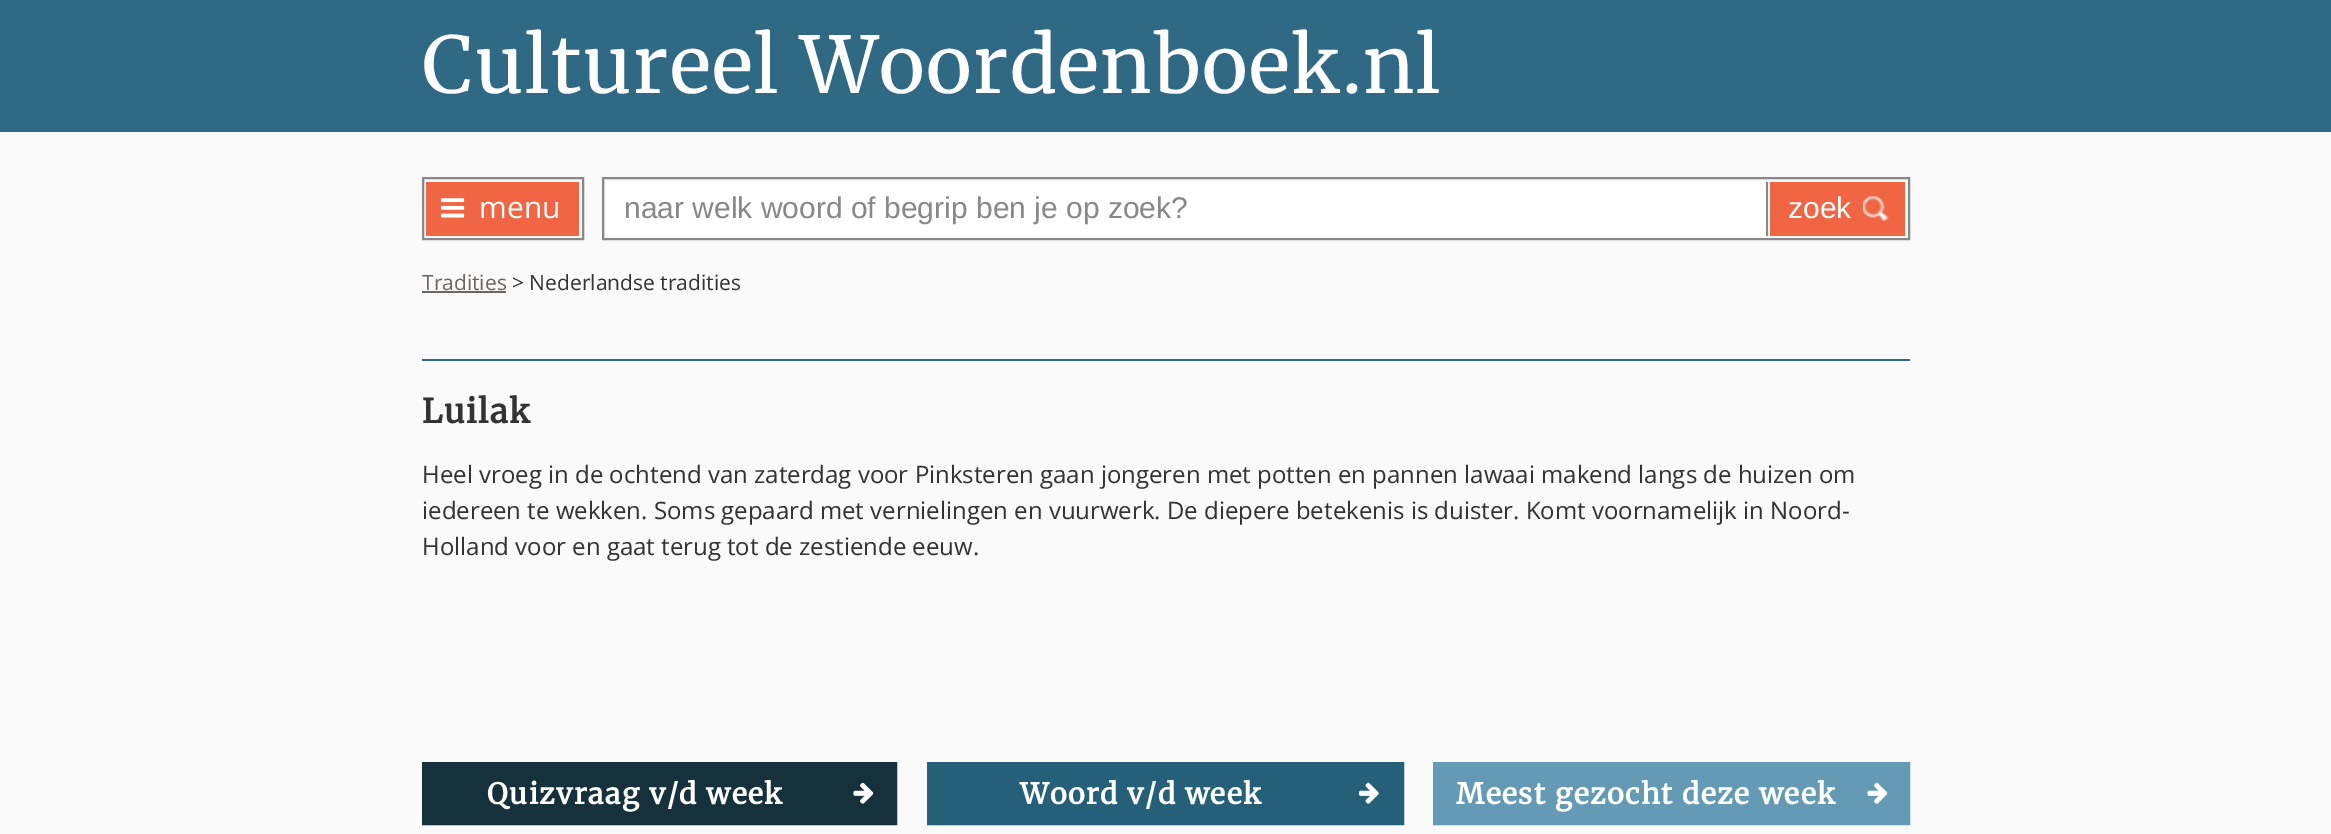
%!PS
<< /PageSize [2331 834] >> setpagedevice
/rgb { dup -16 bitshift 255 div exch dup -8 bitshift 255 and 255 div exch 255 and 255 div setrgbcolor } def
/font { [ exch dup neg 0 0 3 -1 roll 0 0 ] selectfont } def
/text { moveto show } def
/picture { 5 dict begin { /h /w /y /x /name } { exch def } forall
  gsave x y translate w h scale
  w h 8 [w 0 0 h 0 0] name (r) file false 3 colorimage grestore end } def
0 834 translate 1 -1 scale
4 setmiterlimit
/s1 { /OpenSans-Regular 30 font 16#FFFFFF rgb } def
/s2 { /LiberationSans-Regular 30 font 16#888888 rgb } def
/s3 { /LiberationSans-Regular 30 font 16#FFFFFF rgb } def
/s4 { /OpenSans-Regular 21 font 16#70665F rgb } def
/s5 { /OpenSans-Regular 21 font 16#333333 rgb } def
/s6 { /OpenSans-Regular 24 font 16#333333 rgb } def
16#FAFAFA rgb
0 0 2331 834 rectfill
16#306983 rgb
0 0 2331 132 rectfill
/Merriweather-Light 78 font
16#FFFFFF rgb
422 93 moveto 1.5 0 (Cultureel Woordenboek.nl) ashow
16#888888 rgb
2 setlinewidth
423 178 160 61 rectstroke
16#F06543 rgb
426 182 153 54 rectfill
(pic1.raw) 441 198 24 20 picture
s1
(menu) 479 218 text
16#888888 rgb
603 178 1306 61 rectstroke
16#FFFFFF rgb
606 182 1160 54 rectfill
16#888888 rgb
1766 182 2 54 rectfill
s2
(naar welk woord of begrip ben je op zoek?) 624 218 text
16#F06543 rgb
1770 182 135 54 rectfill
(pic2.raw) 1863 196 26 25 picture
s3
(zoek) 1788 218 text
s4
(Tradities) 422 290 text
422 291 84 2 rectfill
s5
(> Nederlandse tradities) 512 290 text
16#316C86 rgb
422 359 1488 2 rectfill
/Merriweather-Bold 33 font
16#333333 rgb
422 423 moveto 1.5 0 (Luilak) ashow
s6
(Heel vroeg in de ochtend van zaterdag voor Pinksteren gaan jongeren met potten en pannen lawaai makend langs de huizen om) 422 483 text
(iedereen te wekken. Soms gepaard met vernielingen en vuurwerk. De diepere betekenis is duister. Komt voornamelijk in Noord-) 422 519 text
(Holland voor en gaat terug tot de zestiende eeuw.) 422 555 text
16#16303C rgb
423 763 473 61 rectstroke
424 764 471 59 rectfill
/Merriweather-Bold 28.5 font
16#FFFFFF rgb
487 804 moveto 1.5 0 (Quizvraag v/d week) ashow
(pic3.raw) 853 782 21 22 picture
16#255F78 rgb
928 763 475 61 rectstroke
929 764 473 59 rectfill
16#FFFFFF rgb
1020 804 moveto 1.5 0 (Woord v/d week) ashow
(pic4.raw) 1359 782 20 22 picture
16#659AB5 rgb
1434 763 475 61 rectstroke
1435 764 473 59 rectfill
16#FFFFFF rgb
1456 804 moveto 1.5 0 (Meest gezocht deze week) ashow
(pic5.raw) 1867 782 21 22 picture
showpage
